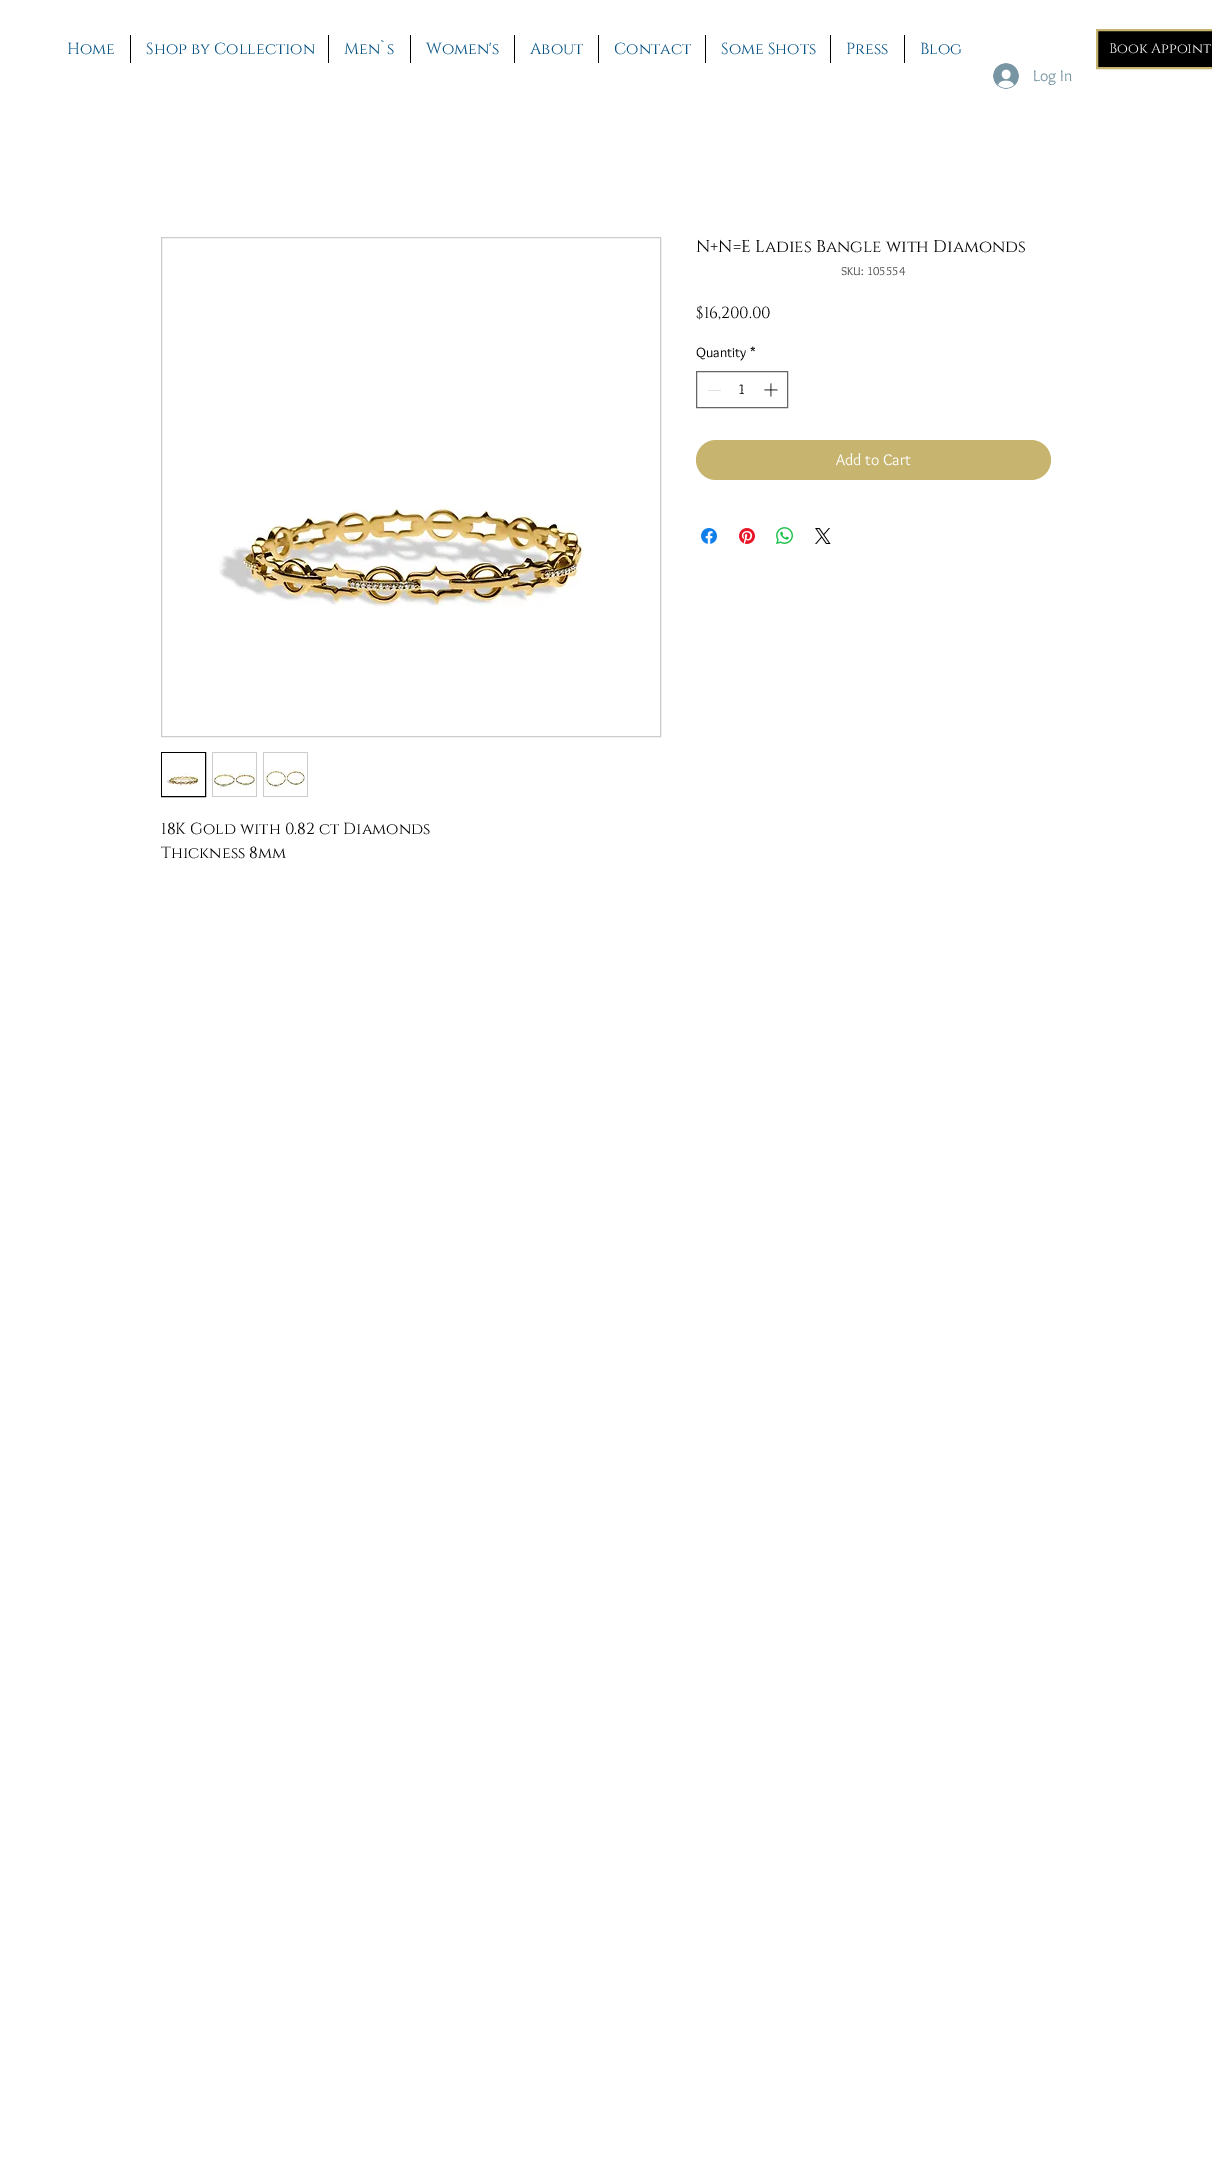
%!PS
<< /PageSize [1212 2181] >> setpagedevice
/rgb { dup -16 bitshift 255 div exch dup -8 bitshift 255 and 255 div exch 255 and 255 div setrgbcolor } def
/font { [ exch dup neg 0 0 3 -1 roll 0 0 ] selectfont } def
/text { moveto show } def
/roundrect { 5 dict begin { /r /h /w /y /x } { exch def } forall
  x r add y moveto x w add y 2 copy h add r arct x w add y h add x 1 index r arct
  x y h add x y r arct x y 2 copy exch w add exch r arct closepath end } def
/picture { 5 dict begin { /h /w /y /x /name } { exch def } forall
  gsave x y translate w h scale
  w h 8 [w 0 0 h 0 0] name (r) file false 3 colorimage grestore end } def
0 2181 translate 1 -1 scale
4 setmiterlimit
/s1 { /Cinzel-Regular 16 font 16#045184 rgb } def
/s2 { /Cinzel-Regular 14 font 16#FFFFFF rgb } def
/s3 { /Overlock-Regular 16 font 16#7795A3 rgb } def
/s4 { /Cinzel-Regular 17 font 16#000000 rgb } def
/s5 { /Overlock-Regular 12 font 16#504F4F rgb } def
/s6 { /Cinzel-Regular 16 font 16#000000 rgb } def
/s7 { /Overlock-Regular 14 font 16#000000 rgb } def
/s8 { /Overlock-Regular 16 font 16#FFFFFF rgb } def
16#FFFFFF rgb
0 0 1212 2181 rectfill
s1
(Home) 67 54 text
16#000000 rgb
130 35 1 28 rectfill
s1
(Shop by Collection) 146 54 text
16#000000 rgb
328 35 1 28 rectfill
s1
(Men`s) 344 54 text
16#000000 rgb
410 35 1 28 rectfill
s1
(Women's) 426 54 text
16#000000 rgb
514 35 1 28 rectfill
s1
(About) 530 54 text
16#000000 rgb
598 35 1 28 rectfill
s1
(Contact) 614 54 text
16#000000 rgb
705 35 1 28 rectfill
s1
(Some Shots) 721 54 text
16#000000 rgb
830 35 1 28 rectfill
s1
(Press) 846 54 text
16#000000 rgb
904 35 1 28 rectfill
s1
(Blog) 920 54 text
16#000000 rgb
1097 30 moveto 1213 30 lineto 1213 68 lineto 1097 68 lineto closepath gsave fill grestore
16#C7B56F rgb
2 setlinewidth
stroke
s2
(Book Appoint) 1109 53 text
(pic1.raw) 993 63 26 26 picture
s3
(Log In) 1033 81 text
s4
(N+N=E Ladies Bangle with Diamonds) 696 252 text
s5
(SKU: 105554) 841 275 text
s6
($16,200.00) 696 318 text
s7
(Quantity) 696 357 text
(*) 750 357 text
16#666666 rgb
1 setlinewidth
696.5 371.5 91 36 rectstroke
16#E3E3E3 rgb
708 390 13 1 rectfill
s7
(1) 738 394 text
(pic2.raw) 764 383 14 14 picture
16#C7B56F rgb
696 440 355 40 20 roundrect fill
s8
(Add to Cart) 836 465 text
(pic3.raw) 701 528 16 16 picture
(pic4.raw) 739 528 16 16 picture
(pic5.raw) 776 527 17 17 picture
(pic6.raw) 815 528 16 16 picture
16#CCCCCC rgb
161.5 237.5 499 499 rectstroke
(pic7.raw) 219 506 364 101 picture
16#000000 rgb
161.5 752.5 44 44 rectstroke
(pic8.raw) 162 753 43 43 picture
16#CCCCCC rgb
212 752 45 45 rectfill
(pic9.raw) 213 753 43 43 picture
263 752 45 45 rectfill
(pic10.raw) 264 753 43 43 picture
s6
(18K Gold with 0.82 ct Diamonds) 161 834 text
(Thickness 8mm) 161 858 text
showpage
